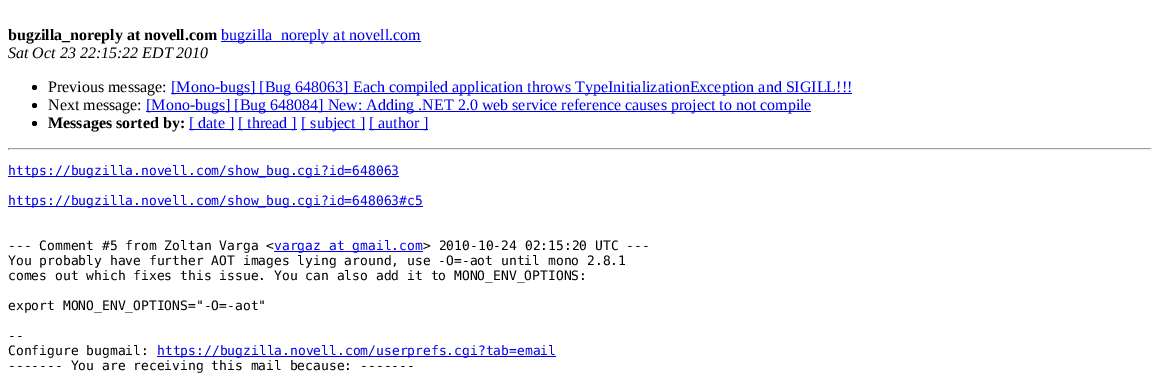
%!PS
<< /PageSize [1160 378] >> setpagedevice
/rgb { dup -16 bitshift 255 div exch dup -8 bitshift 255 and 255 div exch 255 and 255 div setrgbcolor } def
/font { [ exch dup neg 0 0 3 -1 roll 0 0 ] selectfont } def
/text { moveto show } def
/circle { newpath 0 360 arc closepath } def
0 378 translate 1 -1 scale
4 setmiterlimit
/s1 { /LiberationSerif-Bold 16 font 16#000000 rgb } def
/s2 { /LiberationSerif-Regular 16 font 16#0000EE rgb } def
/s3 { /LiberationSerif-Italic 16 font 16#000000 rgb } def
/s4 { /LiberationSerif-Regular 16 font 16#000000 rgb } def
/s5 { /DejaVuSansMono-Regular 13 font 16#0000EE rgb } def
/s6 { /DejaVuSansMono-Regular 13 font 16#000000 rgb } def
16#FFFFFF rgb
0 0 1160 378 rectfill
s1
(bugzilla_noreply at novell.com) 8 40 text
16#0000EE rgb
221 41 200 1 rectfill
s2
(bugzilla_noreply at novell.com) 221 40 text
s3
(Sat Oct 23 22:15:22 EDT 2010) 8 58 text
34.5 87.5 2.5 circle fill
s4
(Previous message:) 48 92 text
16#0000EE rgb
171 93 681 1 rectfill
([Mono-bugs] [Bug 648063] Each compiled application throws TypeInitializationException and SIGILL!!!) 171 92 text
16#000000 rgb
34.5 105.5 2.5 circle fill
(Next message:) 48 110 text
16#0000EE rgb
146 111 665 1 rectfill
([Mono-bugs] [Bug 648084] New: Adding .NET 2.0 web service reference causes project to not compile) 146 110 text
16#000000 rgb
34.5 123.5 2.5 circle fill
s1
(Messages sorted by:) 48 128 text
16#0000EE rgb
189 129 45 1 rectfill
s2
([ date ]) 189 128 text
238 129 59 1 rectfill
([ thread ]) 238 128 text
301 129 64 1 rectfill
([ subject ]) 301 128 text
369 129 59 1 rectfill
([ author ]) 369 128 text
16#9F9F9F rgb
8 148 1144 1 rectfill
16#EEEEEE rgb
1151 148 1 2 rectfill
8 149 1144 1 rectfill
16#9F9F9F rgb
8 148 1 2 rectfill
16#0000EE rgb
8 176 391 1 rectfill
s5
(https://bugzilla.novell.com/show_bug.cgi?id=648063) 8 175 text
8 206 415 1 rectfill
(https://bugzilla.novell.com/show_bug.cgi?id=648063#c5) 8 205 text
s6
(--- Comment #5 from Zoltan Varga <) 8 250 text
16#0000EE rgb
274 251 149 1 rectfill
(vargaz at gmail.com) 274 250 text
s6
(> 2010-10-24 02:15:20 UTC ---) 423 250 text
(You probably have further AOT images lying around, use -O=-aot until mono 2.8.1) 8 265 text
(comes out which fixes this issue. You can also add it to MONO_ENV_OPTIONS:) 8 280 text
(export MONO_ENV_OPTIONS="-O=-aot") 8 310 text
(--) 8 340 text
(Configure bugmail:) 8 355 text
16#0000EE rgb
157 356 399 1 rectfill
(https://bugzilla.novell.com/userprefs.cgi?tab=email) 157 355 text
s6
(------- You are receiving this mail because: -------) 8 370 text
showpage
